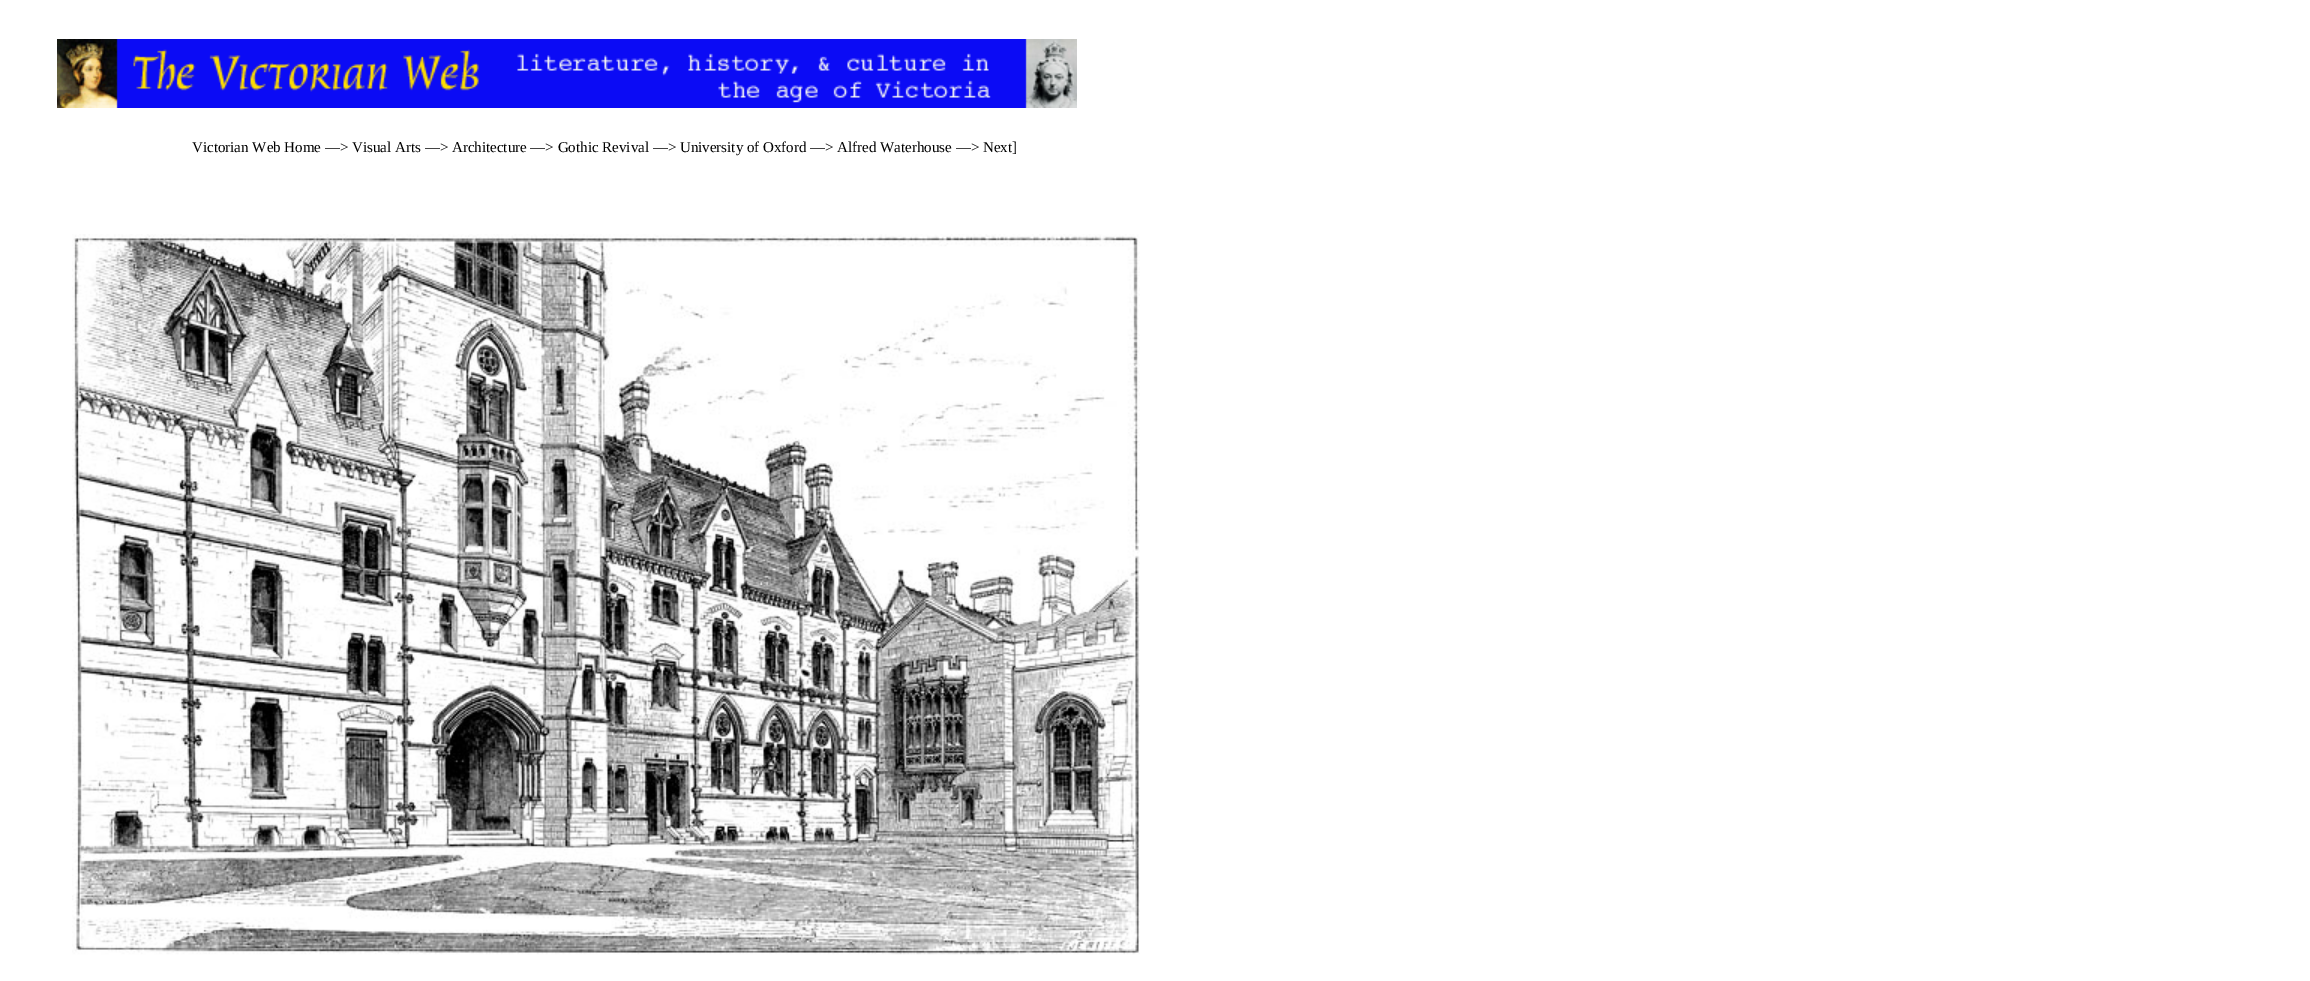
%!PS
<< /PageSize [2310 981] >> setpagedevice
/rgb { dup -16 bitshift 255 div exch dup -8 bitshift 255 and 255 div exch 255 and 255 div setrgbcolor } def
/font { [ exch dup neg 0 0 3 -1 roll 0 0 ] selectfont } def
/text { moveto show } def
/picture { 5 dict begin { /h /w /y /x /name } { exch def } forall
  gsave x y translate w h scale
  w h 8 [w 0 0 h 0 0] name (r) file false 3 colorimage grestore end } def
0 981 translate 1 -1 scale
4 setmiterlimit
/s1 { /LiberationSerif-Regular 15 font 16#000000 rgb } def
16#FFFFFF rgb
0 0 2310 981 rectfill
(pic1.raw) 57 39 1020 69 picture
s1
(Victorian Web Home —> Visual Arts —> Architecture —> Gothic Revival —> University of Oxford —> Alfred Waterhouse —> Next]) 192 152 text
(pic2.raw) 72 234 1068 721 picture
showpage
